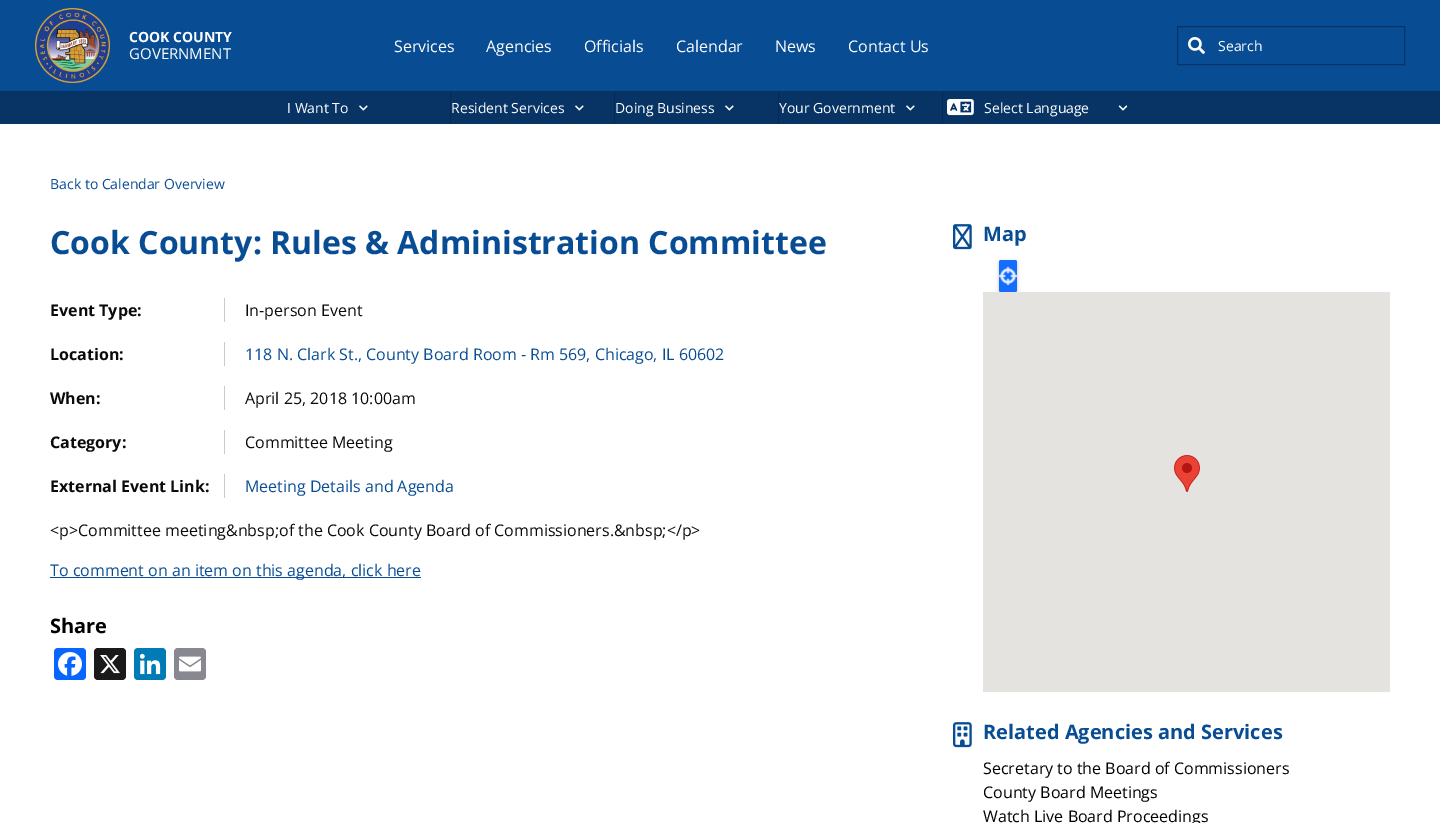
%!PS
<< /PageSize [1440 823] /PageUsesTransparency true >> setpagedevice
/rgb { dup -16 bitshift 255 div exch dup -8 bitshift 255 and 255 div exch 255 and 255 div setrgbcolor } def
/font { [ exch dup neg 0 0 3 -1 roll 0 0 ] selectfont } def
/text { moveto show } def
/alpha { dup .setfillconstantalpha .setstrokeconstantalpha } def
/roundrect { 5 dict begin { /r /h /w /y /x } { exch def } forall
  x r add y moveto x w add y 2 copy h add r arct x w add y h add x 1 index r arct
  x y h add x y r arct x y 2 copy exch w add exch r arct closepath end } def
/shadow { 12 dict begin { /a /b /q /h /w /y /x } { exch def } forall gsave /was 0 def
  9 -2 -9 { dup b mul 4 div /e exch def 1 sub .425 mul 2.718 exch exp 1 add a .99 .min exch div /now exch def
    1 1 now sub 1 was sub div sub alpha /was now def
    w h .min e 2 mul add 0 gt { x e sub y e sub w e 2 mul add h e 2 mul add
      q e add b .6 mul add w h .min 2 div e add .min 0 .max roundrect fill } if } for grestore end } def
/picture { 5 dict begin { /h /w /y /x /name } { exch def } forall
  gsave x y translate w h scale
  w h 8 [w 0 0 h 0 0] name (r) file false 3 colorimage grestore end } def
0 .pushpdf14devicefilter
0 823 translate 1 -1 scale
4 setmiterlimit
/s1 { /OpenSans-Bold 14 font 16#FFFFFF rgb } def
/s2 { /OpenSans-Regular 15 font 16#FFFFFF rgb } def
/s3 { /OpenSans-Regular 16 font 16#FFFFFF rgb } def
/s4 { /OpenSans-Regular 14 font 16#FFFFFF rgb } def
/s5 { /OpenSans-Regular 14 font 16#084D94 rgb } def
/s6 { /OpenSans-Bold 32 font 16#084D94 rgb } def
/s7 { /OpenSans-Bold 16 font 16#0A0A0A rgb } def
/s8 { /OpenSans-Regular 16 font 16#0A0A0A rgb } def
/s9 { /OpenSans-Regular 16 font 16#084D94 rgb } def
/s10 { /OpenSans-Bold 20 font 16#000000 rgb } def
/s11 { /OpenSans-Bold 20 font 16#084D94 rgb } def
/s12 { /OpenSans-Regular 16 font 16#000000 rgb } def
16#FFFFFF rgb
0 0 1440 823 rectfill
16#084D94 rgb
0 0 1440 91 rectfill
(pic1.raw) 35 8 75 75 picture
s1
(COOK COUNTY) 129 42 text
s2
(GOVERNMENT) 129 59 text
s3
(Services) 394 52 text
(Agencies) 486 52 text
(Officials) 584 52 text
(Calendar) 676 52 text
(News) 775 52 text
(Contact Us) 848 52 text
(pic2.raw) 1188 37 17 17 picture
16#073464 rgb
1177.5 26.5 227 38 rectstroke
s4
(Search) 1218 51 text
16#073464 rgb
0 91 1440 33 rectfill
16#062A50 rgb
450 91 1 33 rectfill
s4
(I Want To) 287 113 text
(pic3.raw) 359 105 9 6 picture
16#062A50 rgb
614 91 1 33 rectfill
s4
(Resident Services) 451 113 text
(pic3.raw) 575 105 9 6 picture
16#062A50 rgb
778 91 1 33 rectfill
s4
(Doing Business) 615 113 text
(pic3.raw) 725 105 9 6 picture
16#062A50 rgb
942 91 1 33 rectfill
s4
(Your Government) 779 113 text
(pic3.raw) 906 105 9 6 picture
(pic4.raw) 947 99 27 17 picture
(pic5.raw) 1118 105 10 6 picture
(Select Language) 984 113 text
s5
(Back to Calendar Overview) 50 189 text
s6
(Cook County: Rules & Administration Committee) 50 254 text
16#CACACA rgb
224 298 1 24 rectfill
s7
(Event Type:) 50 316 text
s8
(In-person Event) 245 316 text
16#CACACA rgb
224 342 1 24 rectfill
s7
(Location:) 50 360 text
s9
(118 N. Clark St., County Board Room - Rm 569, Chicago, IL 60602) 245 360 text
16#CACACA rgb
224 386 1 24 rectfill
s7
(When:) 50 404 text
s8
(April 25, 2018 10:00am) 245 404 text
16#CACACA rgb
224 430 1 24 rectfill
s7
(Category:) 50 448 text
s8
(Committee Meeting) 245 448 text
16#CACACA rgb
224 474 1 24 rectfill
s7
(External Event Link:) 50 492 text
s9
(Meeting Details and Agenda) 245 492 text
s8
(<p>Committee meeting&nbsp;of the Cook County Board of Commissioners.&nbsp;</p>) 50 536 text
16#084D94 rgb
50 577 371 1 rectfill
(To comment on an item on this agenda, click here) 50 576 text
s10
(Share) 50 633 text
16#0866FF rgb
54 648 32 32 4 roundrect fill
(pic6.raw) 58 652 24 24 picture
16#1A1A1A rgb
94 648 32 32 4 roundrect fill
(pic7.raw) 100 655 20 19 picture
16#007BB5 rgb
134 648 32 32 4 roundrect fill
(pic8.raw) 139 653 22 22 picture
16#888990 rgb
174 648 32 32 4 roundrect fill
(pic9.raw) 179 656 22 16 picture
(pic10.raw) 953 224 19 26 picture
s11
(Map) 983 241 text
16#000000 rgb
999 261 18 32 2 2.5 0.12 shadow
999 262 18 32 2 1 0.14 shadow
16#156DFE rgb
999 260 18 32 2 roundrect fill
(pic11.raw) 999 267 18 18 picture
16#E5E3DF rgb
983 292 407 400 rectfill
(pic12.raw) 1174 455 26 37 picture
(pic13.raw) 953 722 19 26 picture
s11
(Related Agencies and Services) 983 739 text
s12
(Secretary to the Board of Commissioners) 983 774 text
(County Board Meetings) 983 798 text
(Watch Live Board Proceedings) 983 822 text
.poppdf14devicefilter showpage
